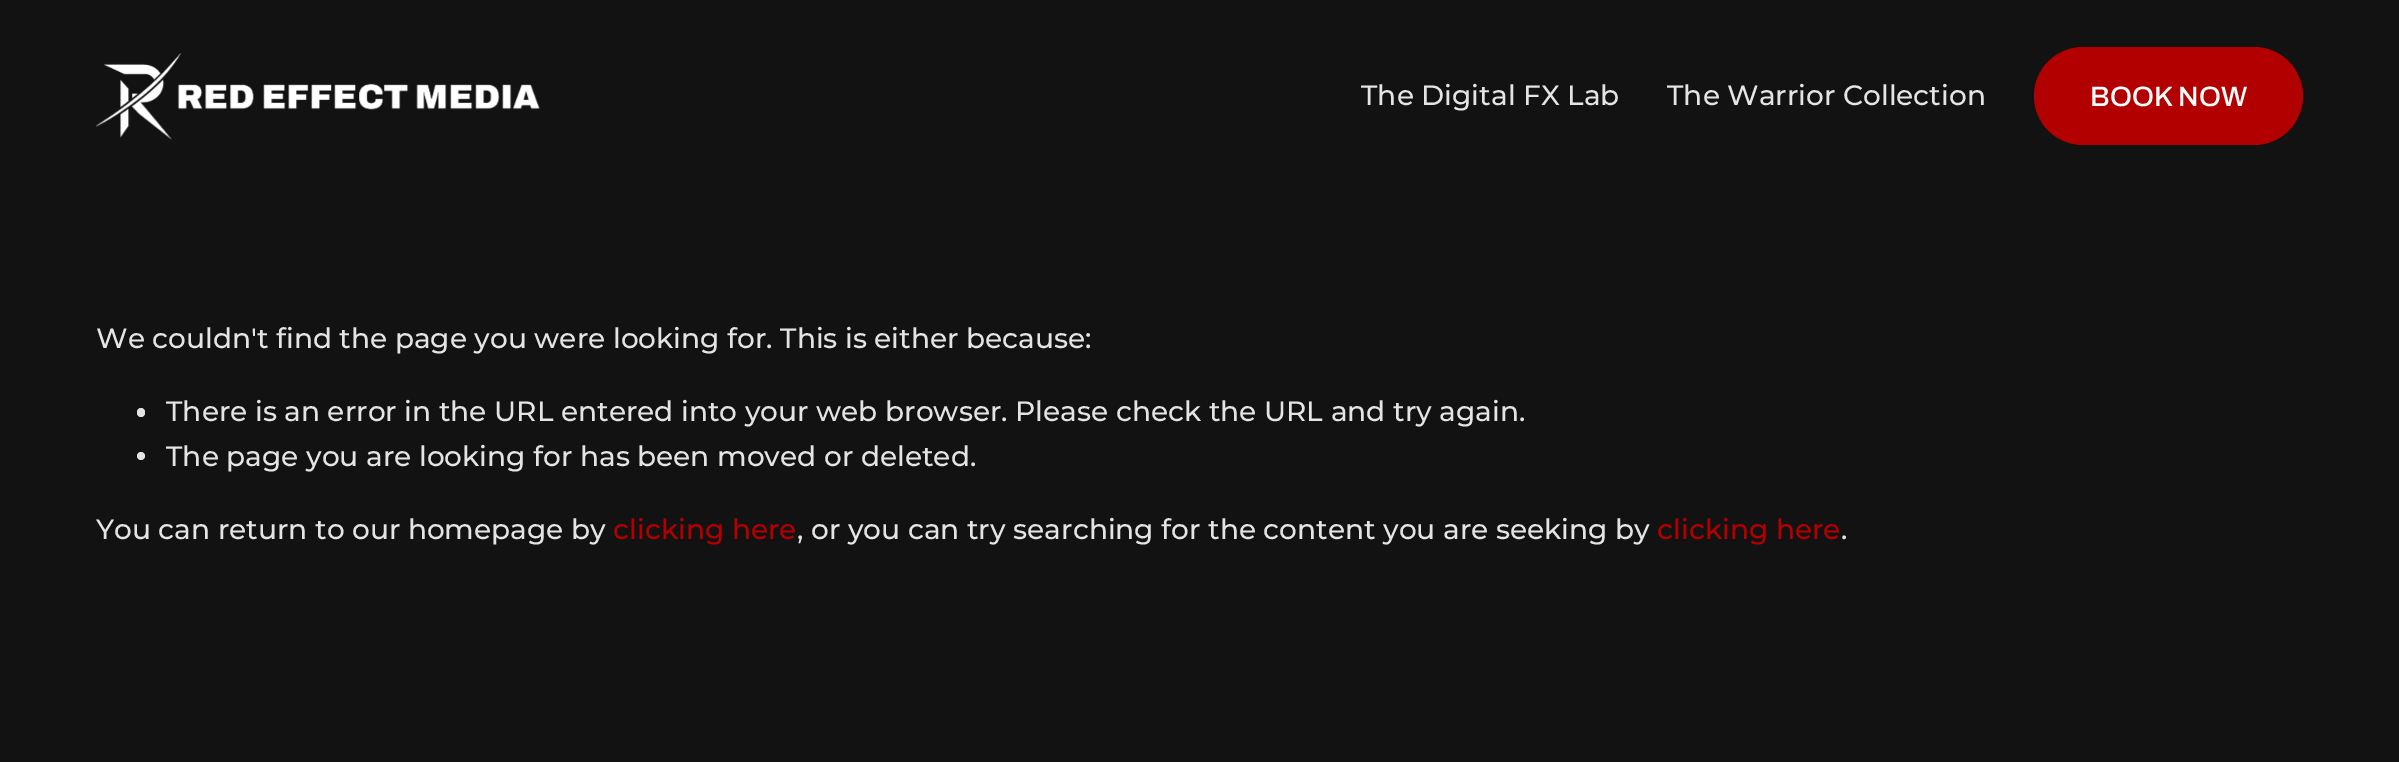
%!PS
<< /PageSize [2399 762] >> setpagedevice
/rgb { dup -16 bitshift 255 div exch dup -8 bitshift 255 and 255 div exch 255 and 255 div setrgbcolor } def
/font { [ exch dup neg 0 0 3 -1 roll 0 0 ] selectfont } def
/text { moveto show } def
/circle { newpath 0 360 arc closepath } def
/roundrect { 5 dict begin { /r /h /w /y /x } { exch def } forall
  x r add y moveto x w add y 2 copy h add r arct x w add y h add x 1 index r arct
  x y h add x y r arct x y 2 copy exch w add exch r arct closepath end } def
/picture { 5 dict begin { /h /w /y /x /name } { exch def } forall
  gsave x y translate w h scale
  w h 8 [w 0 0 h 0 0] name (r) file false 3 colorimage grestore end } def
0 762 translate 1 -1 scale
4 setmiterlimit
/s1 { /Montserrat-Medium 28 font 16#E4E4E4 rgb } def
/s2 { /Archivo-Medium 28 font 16#FFFFFF rgb } def
/s3 { /Montserrat-Medium 28 font 16#B20000 rgb } def
16#121212 rgb
0 0 2399 762 rectfill
(pic1.raw) 96 53 444 87 picture
s1
(The Digital FX Lab) 1361 105 text
(The Warrior Collection) 1667 105 text
16#B20000 rgb
2034 47 269 98 49 roundrect fill
s2
(BOOK NOW) 2090 106 text
s1
(We couldn't find the page you were looking for. This is either because:) 96 348 text
137 408 8 9 4 roundrect fill
(There is an error in the URL entered into your web browser. Please check the URL and try again.) 166 421 text
141 456 4 circle fill
(The page you are looking for has been moved or deleted.) 166 466 text
(You can return to our homepage by) 96 539 text
s3
(clicking here) 613 539 text
s1
(, or you can try searching for the content you are seeking by) 797 539 text
s3
(clicking here) 1657 539 text
s1
(.) 1841 539 text
showpage
